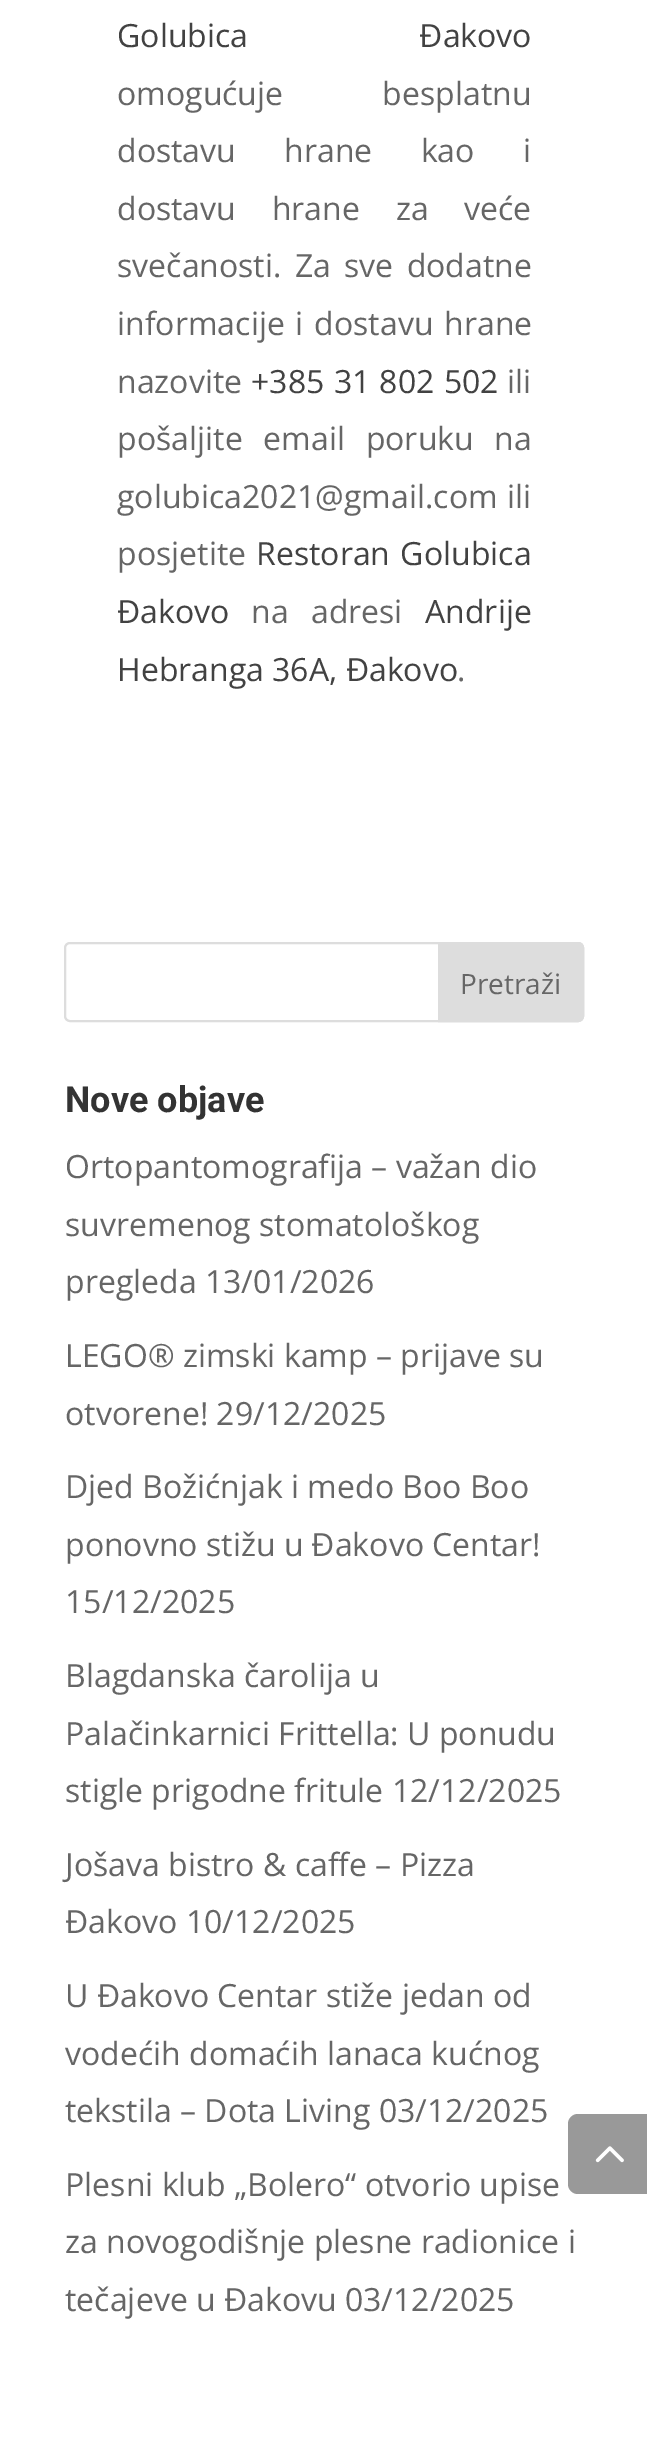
%!PS
<< /PageSize [647 2443] >> setpagedevice
/rgb { dup -16 bitshift 255 div exch dup -8 bitshift 255 and 255 div exch 255 and 255 div setrgbcolor } def
/font { [ exch dup neg 0 0 3 -1 roll 0 0 ] selectfont } def
/text { moveto show } def
/roundrect { 5 dict begin { /r /h /w /y /x } { exch def } forall
  x r add y moveto x w add y 2 copy h add r arct x w add y h add x 1 index r arct
  x y h add x y r arct x y 2 copy exch w add exch r arct closepath end } def
/picture { 5 dict begin { /h /w /y /x /name } { exch def } forall
  gsave x y translate w h scale
  w h 8 [w 0 0 h 0 0] name (r) file false 3 colorimage grestore end } def
0 2443 translate 1 -1 scale
4 setmiterlimit
/s1 { /OpenSans-Regular 32 font 16#666666 rgb } def
/s2 { /OpenSans-Regular 32 font 16#424242 rgb } def
/s3 { /OpenSans-Regular 28 font 16#666666 rgb } def
/s4 { /Roboto-Bold 36 font 16#333333 rgb } def
16#FFFFFF rgb
0 0 647 2443 rectfill
/OpenSans-Regular 32 font
16#424242 rgb
117 47 moveto 163 0 32 (Golubica Đakovo) widthshow
16#666666 rgb
117 105 moveto 91 0 32 (omogućuje besplatnu) widthshow
117 162 moveto 40 0 32 (dostavu hrane kao i) widthshow
117 220 moveto 27.5 0 32 (dostavu hrane za veće) widthshow
117 277 moveto 5 0 32 (svečanosti. Za sve dodatne) widthshow
117 335 moveto 2.5 0 32 (informacije i dostavu hrane) widthshow
(nazovite) 117 393 text
16#424242 rgb
251 393 moveto 1 0 32 (+385 31 802 502) widthshow
s1
(ili) 507 393 text
117 450 moveto 12.5 0 32 (pošaljite email poruku na) widthshow
(golubica2021@gmail.com) 117 508 text
(ili) 507 508 text
(posjetite) 117 565 text
16#424242 rgb
256 565 moveto 2 0 32 (Restoran Golubica) widthshow
(Đakovo) 117 623 text
16#666666 rgb
251 623 moveto 14 0 32 (na adresi) widthshow
s2
(Andrije) 425 623 text
(Hebranga 36A, Đakovo) 117 681 text
s1
(.) 457 681 text
16#DDDDDD rgb
2 setlinewidth
65 943 518 78 5 roundrect stroke
439 943 moveto 578 943 lineto 581 943 583 945 583 948 curveto 583 1016 lineto 583 1019 581 1021 578 1021 curveto 439 1021 lineto closepath gsave fill grestore
stroke
s3
(Pretraži) 460 994 text
s4
(Nove objave) 65 1112 text
s1
(Ortopantomografija – važan dio) 65 1178 text
(suvremenog stomatološkog) 65 1236 text
(pregleda 13/01/2026) 65 1293 text
(LEGO® zimski kamp – prijave su) 65 1367 text
(otvorene! 29/12/2025) 65 1425 text
(Djed Božićnjak i medo Boo Boo) 65 1498 text
(ponovno stižu u Đakovo Centar!) 65 1556 text
(15/12/2025) 65 1613 text
(Blagdanska čarolija u) 65 1687 text
(Palačinkarnici Frittella: U ponudu) 65 1745 text
(stigle prigodne fritule 12/12/2025) 65 1802 text
(Jošava bistro & caffe – Pizza) 65 1876 text
(Đakovo 10/12/2025) 65 1933 text
(U Đakovo Centar stiže jedan od) 65 2007 text
(vodećih domaćih lanaca kućnog) 65 2065 text
(tekstila – Dota Living 03/12/2025) 65 2122 text
(Plesni klub „Bolero“ otvorio upise) 65 2196 text
(za novogodišnje plesne radionice i) 65 2253 text
(tečajeve u Đakovu 03/12/2025) 65 2311 text
16#999999 rgb
578 2114 moveto 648 2114 lineto 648 2194 lineto 578 2194 lineto 572.5 2194 568 2189.5 568 2184 curveto 568 2124 lineto 568 2118.5 572.5 2114 578 2114 curveto closepath fill
(pic1.raw) 595 2146 29 17 picture
showpage
